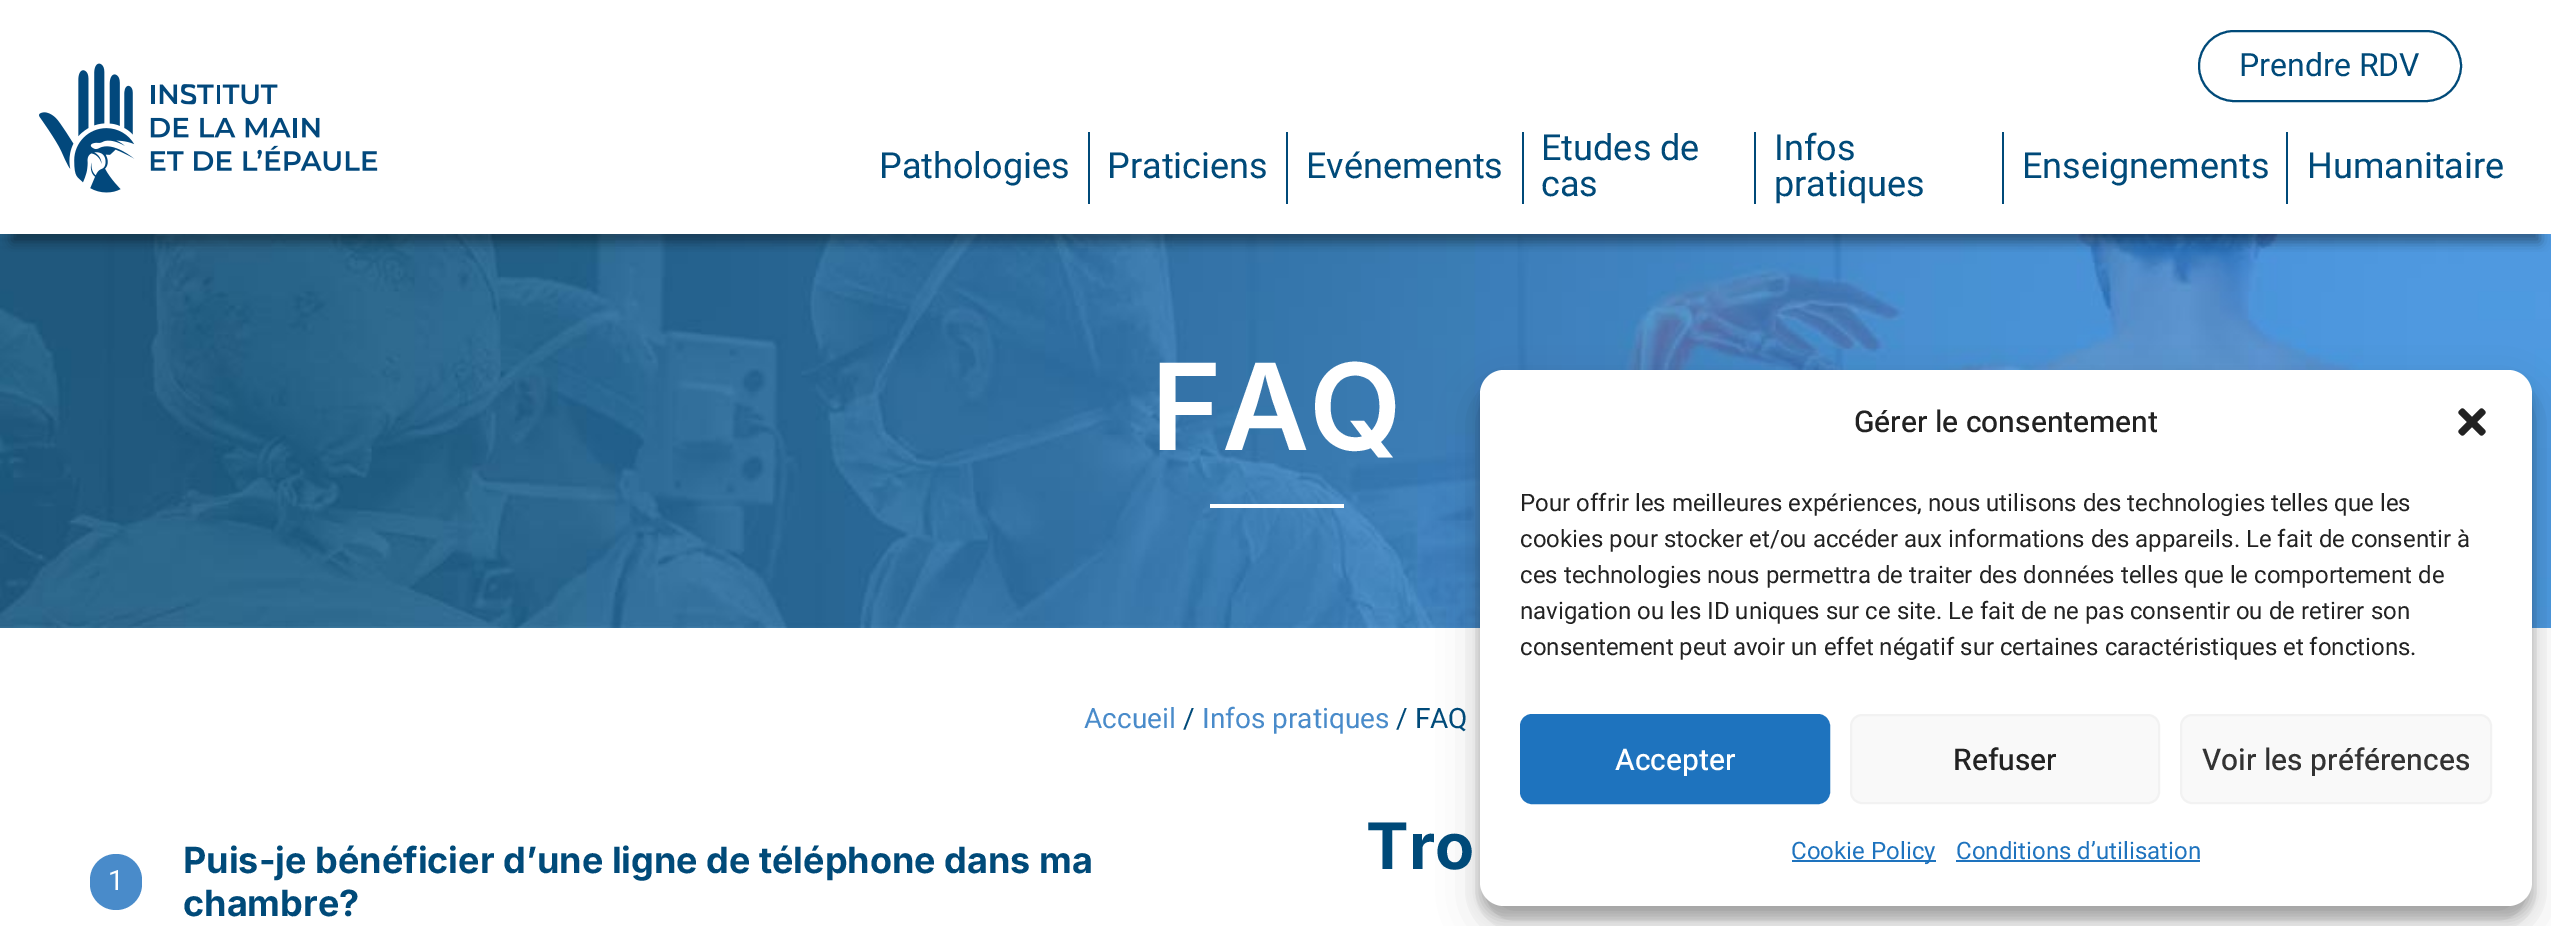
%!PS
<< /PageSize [2551 926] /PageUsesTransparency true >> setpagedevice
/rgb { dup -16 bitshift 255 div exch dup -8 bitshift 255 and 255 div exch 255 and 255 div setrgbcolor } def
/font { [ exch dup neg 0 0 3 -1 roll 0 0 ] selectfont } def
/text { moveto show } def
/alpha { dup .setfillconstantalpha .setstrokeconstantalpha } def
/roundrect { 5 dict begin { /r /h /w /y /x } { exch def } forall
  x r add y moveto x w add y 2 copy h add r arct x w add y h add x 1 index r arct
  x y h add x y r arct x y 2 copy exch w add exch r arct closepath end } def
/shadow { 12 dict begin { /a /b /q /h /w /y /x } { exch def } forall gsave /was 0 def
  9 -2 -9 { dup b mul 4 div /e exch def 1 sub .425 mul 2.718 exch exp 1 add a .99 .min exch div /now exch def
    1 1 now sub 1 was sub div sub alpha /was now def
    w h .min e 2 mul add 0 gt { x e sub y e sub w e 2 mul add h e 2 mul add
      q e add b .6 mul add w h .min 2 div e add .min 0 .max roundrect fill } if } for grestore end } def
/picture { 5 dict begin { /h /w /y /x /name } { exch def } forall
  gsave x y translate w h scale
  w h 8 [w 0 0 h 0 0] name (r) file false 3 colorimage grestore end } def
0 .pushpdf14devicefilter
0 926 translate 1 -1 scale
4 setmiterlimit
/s1 { /Heebo-Regular 32 font 16#004A79 rgb } def
/s2 { /Heebo-Regular 36 font 16#004A79 rgb } def
/s3 { /Inter-SemiBold 120 font 16#FFFFFF rgb } def
/s4 { /Heebo-Medium 30 font 16#222222 rgb } def
/s5 { /Heebo-Regular 24 font 16#222222 rgb } def
/s6 { /Heebo-Medium 30 font 16#FFFFFF rgb } def
/s7 { /Heebo-Medium 30 font 16#333333 rgb } def
/s8 { /Heebo-Regular 24 font 16#1E73BE rgb } def
/s9 { /Heebo-Regular 28 font 16#498BCA rgb } def
/s10 { /Heebo-Regular 28 font 16#004A79 rgb } def
/s11 { /Heebo-Regular 28 font 16#FFFFFF rgb } def
/s12 { /Inter-Bold 36 font 16#004A79 rgb } def
/s13 { /Inter-Bold 64 font 16#004A79 rgb } def
16#FFFFFF rgb
0 0 2551 926 rectfill
(pic2.raw) 0 234 2551 394 picture
gsave
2 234 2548 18 rectclip
16#000000 rgb
12 32 2528 210 0 6 0.4 shadow
grestore
(pic1.raw) 39 63 339 130 picture
16#004A79 rgb
2 setlinewidth
2199 31 262 70 35 roundrect stroke
s1
(Prendre RDV) 2239 76 text
1088 132 2 72 rectfill
s2
(Pathologies) 879 178 text
1286 132 2 72 rectfill
(Praticiens) 1107 178 text
1522 132 2 72 rectfill
(Evénements) 1306 178 text
1754 132 2 72 rectfill
(Etudes de) 1541 160 text
(cas) 1541 196 text
2002 132 2 72 rectfill
(Infos) 1774 160 text
(pratiques) 1774 196 text
2286 132 2 72 rectfill
(Enseignements) 2022 178 text
(Humanitaire) 2307 178 text
s3
(FAQ) 1151 450 text
1210 504 134 4 rectfill
16#000000 rgb
1480 382 1052 536 24 6 0.23 shadow
1480 390 1052 536 24 20 0.19 shadow
16#FFFFFF rgb
1480 370 1052 536 24 roundrect fill
s4
(Gérer le consentement) 1854 432 text
(pic3.raw) 2458 408 28 28 picture
s5
(Pour offrir les meilleures expériences, nous utilisons des technologies telles que les) 1520 511 text
(cookies pour stocker et/ou accéder aux informations des appareils. Le fait de consentir à) 1520 547 text
(ces technologies nous permettra de traiter des données telles que le comportement de) 1520 583 text
(navigation ou les ID uniques sur ce site. Le fait de ne pas consentir ou de retirer son) 1520 619 text
(consentement peut avoir un effet négatif sur certaines caractéristiques et fonctions.) 1520 655 text
16#1E73BE rgb
1521 715 308 88 11 roundrect gsave fill grestore
stroke
s6
(Accepter) 1615 770 text
16#F9F9F9 rgb
1851 715 308 88 11 roundrect gsave fill grestore
16#F2F2F2 rgb
stroke
s4
(Refuser) 1953 770 text
16#F9F9F9 rgb
2181 715 310 88 11 roundrect gsave fill grestore
16#F2F2F2 rgb
stroke
s7
(Voir les préférences) 2202 770 text
16#1E73BE rgb
1792 860 144 2 rectfill
s8
(Cookie Policy) 1791 859 text
(Conditions d’utilisation) 1956 859 text
1956 860 244 2 rectfill
s9
(Accueil) 1084 728 text
s10
(/) 1183 728 text
s9
(Infos pratiques) 1202 728 text
s10
(/ FAQ) 1396 728 text
16#498BCA rgb
90 854 52 56 26 roundrect fill
s11
(1) 108 890 text
s12
(Puis-je bénéficier d’une ligne de téléphone dans ma) 183 873 text
(chambre?) 183 916 text
s13
(Tro) 1366 869 text
.poppdf14devicefilter showpage
